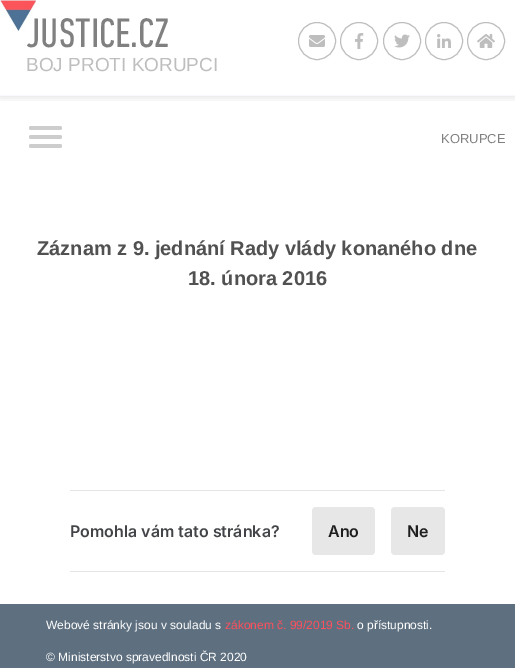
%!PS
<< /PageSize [515 668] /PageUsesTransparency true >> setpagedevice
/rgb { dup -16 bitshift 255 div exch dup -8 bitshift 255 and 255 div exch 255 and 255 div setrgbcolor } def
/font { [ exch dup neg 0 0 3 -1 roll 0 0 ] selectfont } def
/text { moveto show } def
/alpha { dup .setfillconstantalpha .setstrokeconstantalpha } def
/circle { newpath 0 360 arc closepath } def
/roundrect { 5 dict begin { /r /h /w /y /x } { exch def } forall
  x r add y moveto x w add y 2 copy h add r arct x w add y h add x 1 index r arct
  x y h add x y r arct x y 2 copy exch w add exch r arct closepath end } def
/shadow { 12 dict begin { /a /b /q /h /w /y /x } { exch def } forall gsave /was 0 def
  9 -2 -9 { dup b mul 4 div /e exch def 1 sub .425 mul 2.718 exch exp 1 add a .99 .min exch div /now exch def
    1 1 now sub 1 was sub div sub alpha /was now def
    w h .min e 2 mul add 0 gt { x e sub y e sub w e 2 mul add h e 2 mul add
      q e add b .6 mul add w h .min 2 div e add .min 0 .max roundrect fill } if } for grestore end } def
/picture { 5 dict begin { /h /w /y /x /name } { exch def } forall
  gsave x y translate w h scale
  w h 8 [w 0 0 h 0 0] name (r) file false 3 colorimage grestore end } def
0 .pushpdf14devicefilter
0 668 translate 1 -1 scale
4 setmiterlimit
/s1 { /DINNext-Regular 42 font 16#808080 rgb } def
/s2 { /LiberationSans-Regular 19 font 16#BEBEBE rgb } def
/s3 { /LiberationSans-Regular 13 font 16#808080 rgb } def
/s4 { /LiberationSans-Bold 20 font 16#515151 rgb } def
/s5 { /Inter-SemiBold 16 font 16#424447 rgb } def
/s6 { /Inter-SemiBold 16 font 16#1E1E1F rgb } def
/s7 { /LiberationSans-Regular 12 font 16#FFFFFF rgb } def
/s8 { /LiberationSans-Regular 12 font 16#FE505D rgb } def
16#FFFFFF rgb
0 0 515 668 rectfill
gsave
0 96 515 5 rectclip
16#000000 rgb
0 2 515 96 0 4 0.1 shadow
grestore
16#F8F9FC rgb
0 95 515 1 rectfill
(pic1.raw) 0 0 36 31 picture
s1
(JUSTICE.CZ) 26 47 text
s2
(BOJ PROTI KORUPCI) 26 71 text
317 41 18.5 circle stroke
(pic2.raw) 309 35 16 12 picture
359 41 18.5 circle stroke
(pic3.raw) 355 33 9 16 picture
402 41 18.5 circle stroke
(pic4.raw) 394 34 16 14 picture
444 41 18.5 circle stroke
(pic5.raw) 437 34 14 14 picture
486 41 18.5 circle stroke
(pic6.raw) 477 34 18 14 picture
s3
(KORUPCE) 441 143 text
16#CDCDCD rgb
29 126 33 4 2 roundrect fill
29 135 33 4 2 roundrect fill
29 144 33 4 2 roundrect fill
s4
(Záznam z 9. jednání Rady vlády konaného dne) 37 255 text
(18. února 2016) 188 285 text
16#E5E5E5 rgb
70 490 375 1 rectfill
70 571 375 1 rectfill
s5
(Pomohla vám tato stránka?) 70 537 text
16#E7E7E8 rgb
312 507 63 48 4 roundrect fill
s6
(Ano) 328 537 text
16#E7E7E8 rgb
391 507 54 48 4 roundrect fill
s6
(Ne) 407 537 text
16#5E6F7F rgb
0 604 515 64 rectfill
s7
(Webové stránky jsou v souladu s) 46 629 text
s8
(zákonem č. 99/2019 Sb.) 225 629 text
s7
(o přístupnosti.) 357 629 text
(© Ministerstvo spravedlnosti ČR 2020) 46 661 text
.poppdf14devicefilter showpage
